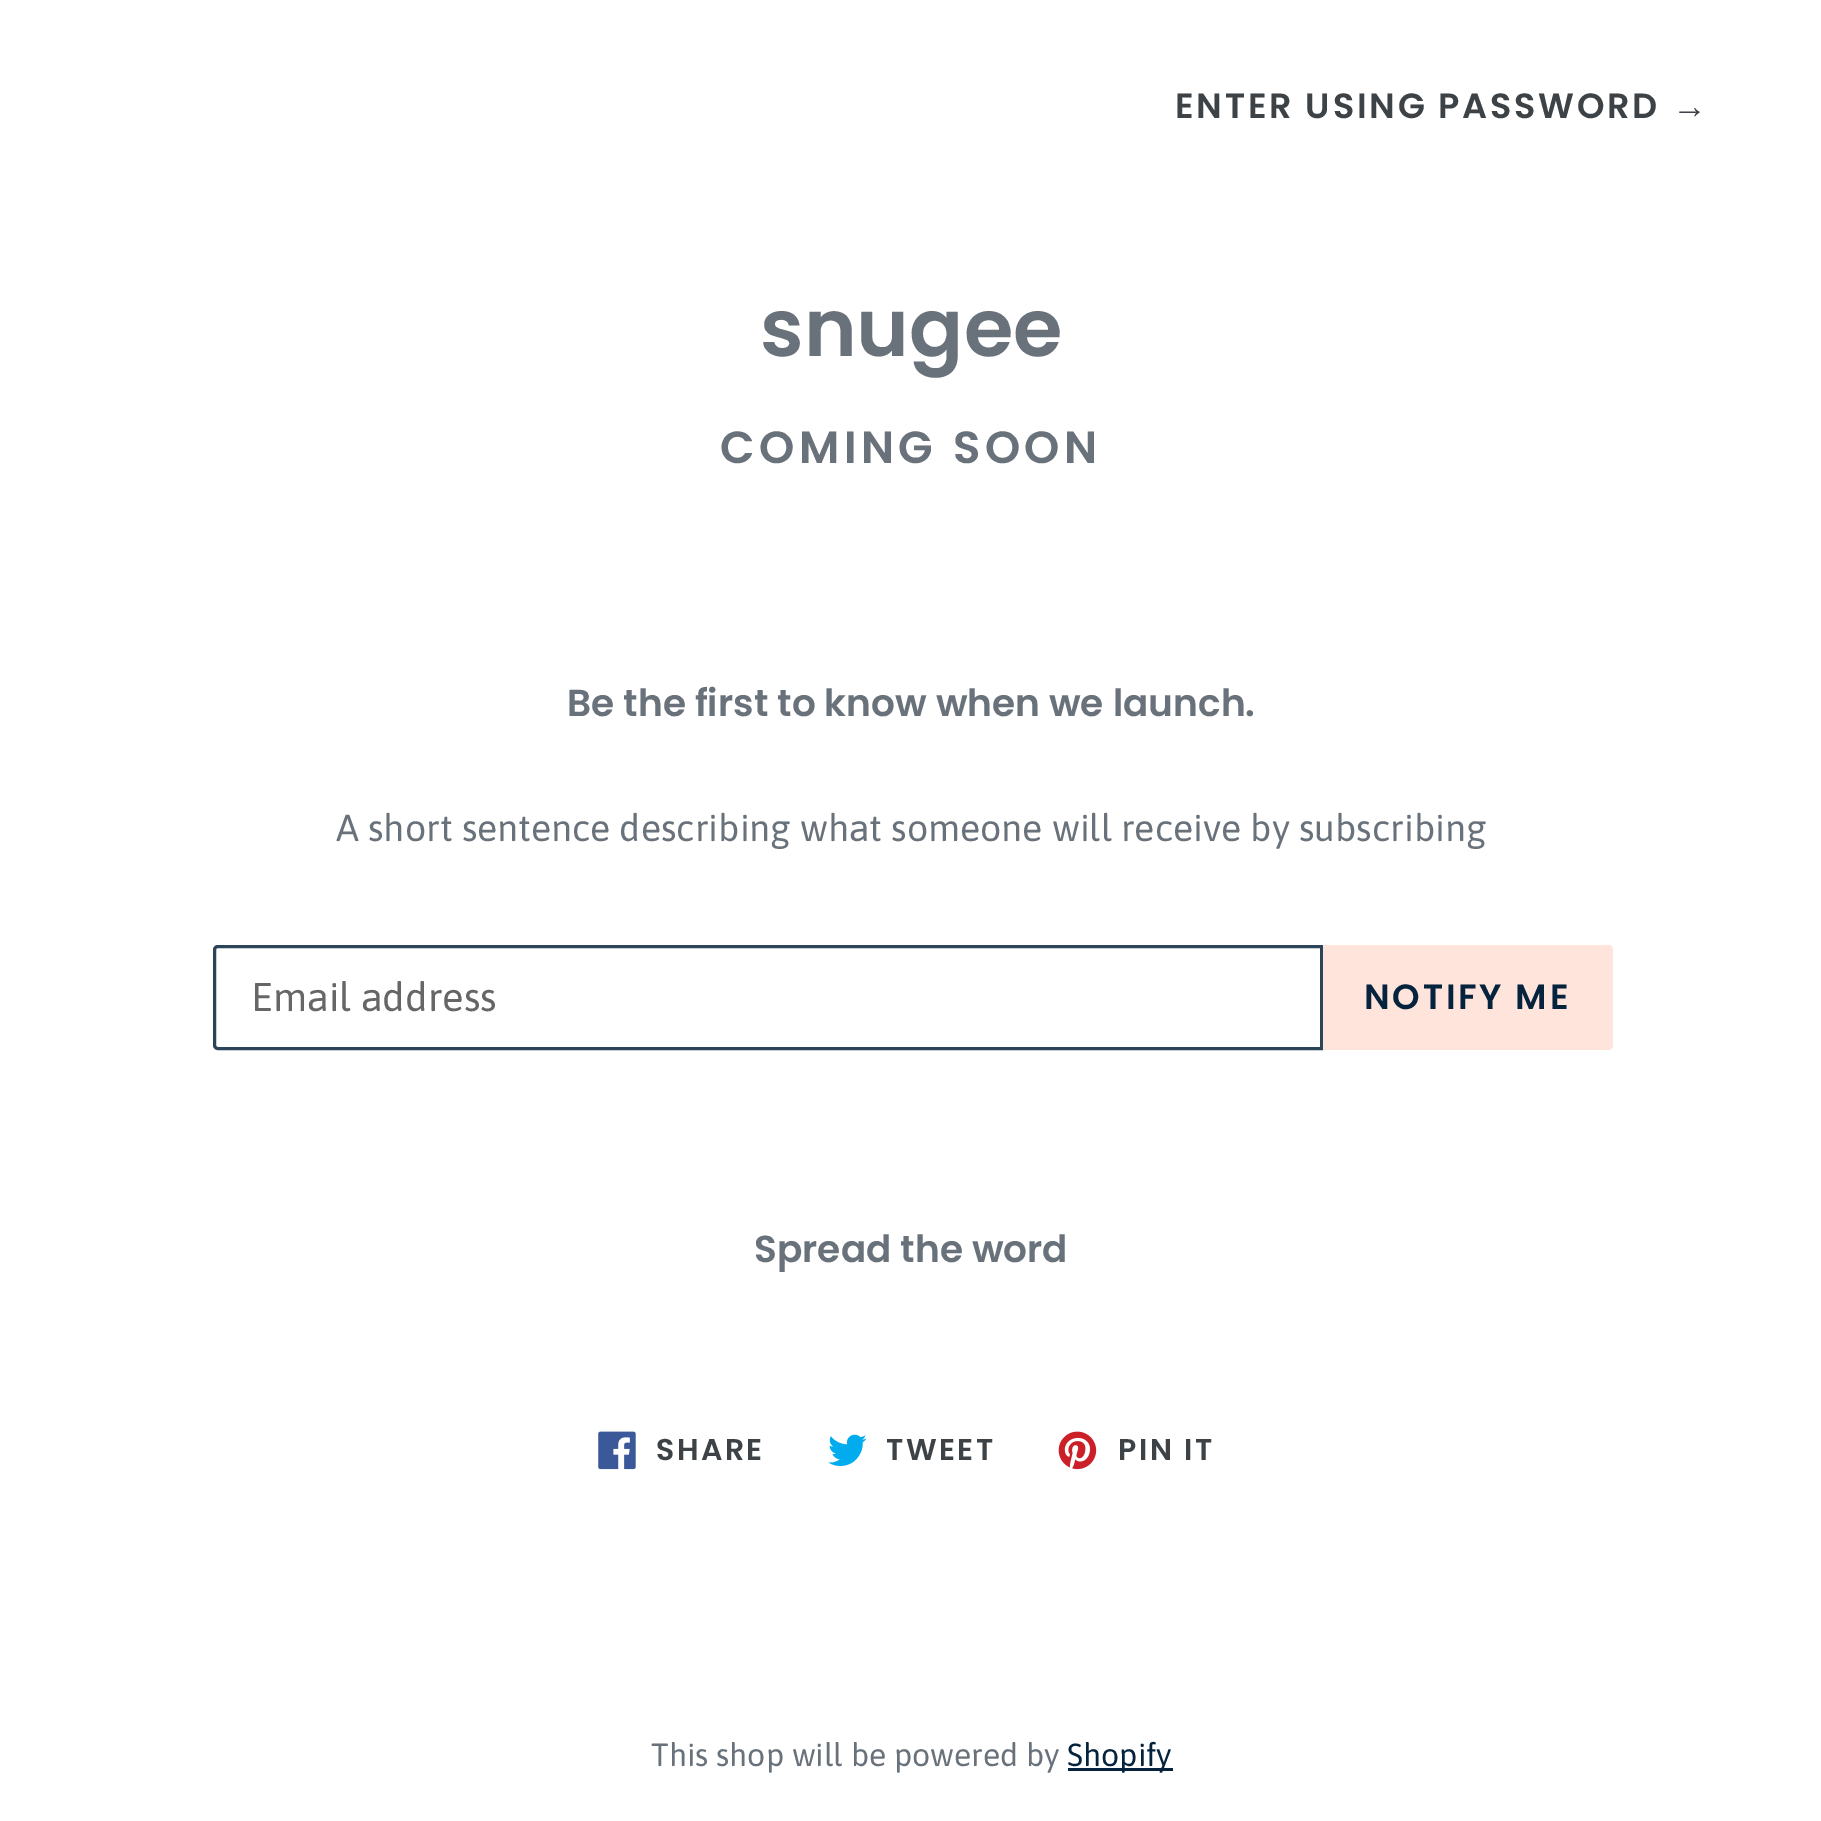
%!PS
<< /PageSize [1821 1821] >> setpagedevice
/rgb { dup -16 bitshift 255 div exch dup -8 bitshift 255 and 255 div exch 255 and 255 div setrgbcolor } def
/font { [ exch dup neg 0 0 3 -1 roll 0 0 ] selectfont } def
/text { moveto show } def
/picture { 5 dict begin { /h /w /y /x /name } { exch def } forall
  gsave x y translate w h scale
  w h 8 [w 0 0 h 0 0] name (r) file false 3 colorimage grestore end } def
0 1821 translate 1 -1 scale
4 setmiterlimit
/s1 { /Poppins-SemiBold 80 font 16#69727B rgb } def
/s2 { /Poppins-SemiBold 37.5 font 16#69727B rgb } def
/s3 { /Asap-Regular 37.5 font 16#69727B rgb } def
/s4 { /Asap-Regular 40 font 16#666666 rgb } def
/s5 { /Asap-Regular 32 font 16#69727B rgb } def
/s6 { /Asap-Regular 32 font 16#05233D rgb } def
16#FFFFFF rgb
0 0 1821 1821 rectfill
/Poppins-SemiBold 35 font
16#3D4246 rgb
1175 118 moveto 2.75 0 (ENTER USING PASSWORD) ashow
/LiberationSans-Bold 35 font
1672 118 moveto 2.75 0 (→) ashow
s1
(snugee) 760 356 text
/Poppins-SemiBold 45 font
720 463 moveto 4.5 0 (COMING SOON) ashow
s2
(Be the first to know when we launch.) 567 716 text
s3
(A short sentence describing what someone will receive by subscribing) 336 841 text
16#2B445A rgb
3 setlinewidth
218 946.5 moveto 1321.5 946.5 lineto 1321.5 1048.5 lineto 218 1048.5 lineto 216 1048.5 214.5 1047 214.5 1045 curveto 214.5 950 lineto 214.5 948 216 946.5 218 946.5 curveto closepath stroke
s4
(Email address) 251 1011 text
16#FFE4DC rgb
1323 945 moveto 1608 945 lineto 1611 945 1613 947 1613 950 curveto 1613 1045 lineto 1613 1048 1611 1050 1608 1050 curveto 1323 1050 lineto closepath fill
/Poppins-SemiBold 35 font
16#05233D rgb
1364 1009 moveto 2.75 0 (NOTIFY ME) ashow
s2
(Spread the word) 754 1262 text
(pic1.raw) 598 1431 38 39 picture
/Poppins-SemiBold 30 font
16#3D4246 rgb
656 1460 moveto 2.5 0 (SHARE) ashow
(pic2.raw) 828 1434 39 32 picture
886 1460 moveto 2.5 0 (TWEET) ashow
(pic3.raw) 1058 1431 39 39 picture
1118 1460 moveto 2.5 0 (PIN IT) ashow
s5
(This shop will be powered by) 651 1766 text
16#05233D rgb
1068 1768 105 3 rectfill
(Shopify) 1067 1766 text
showpage
